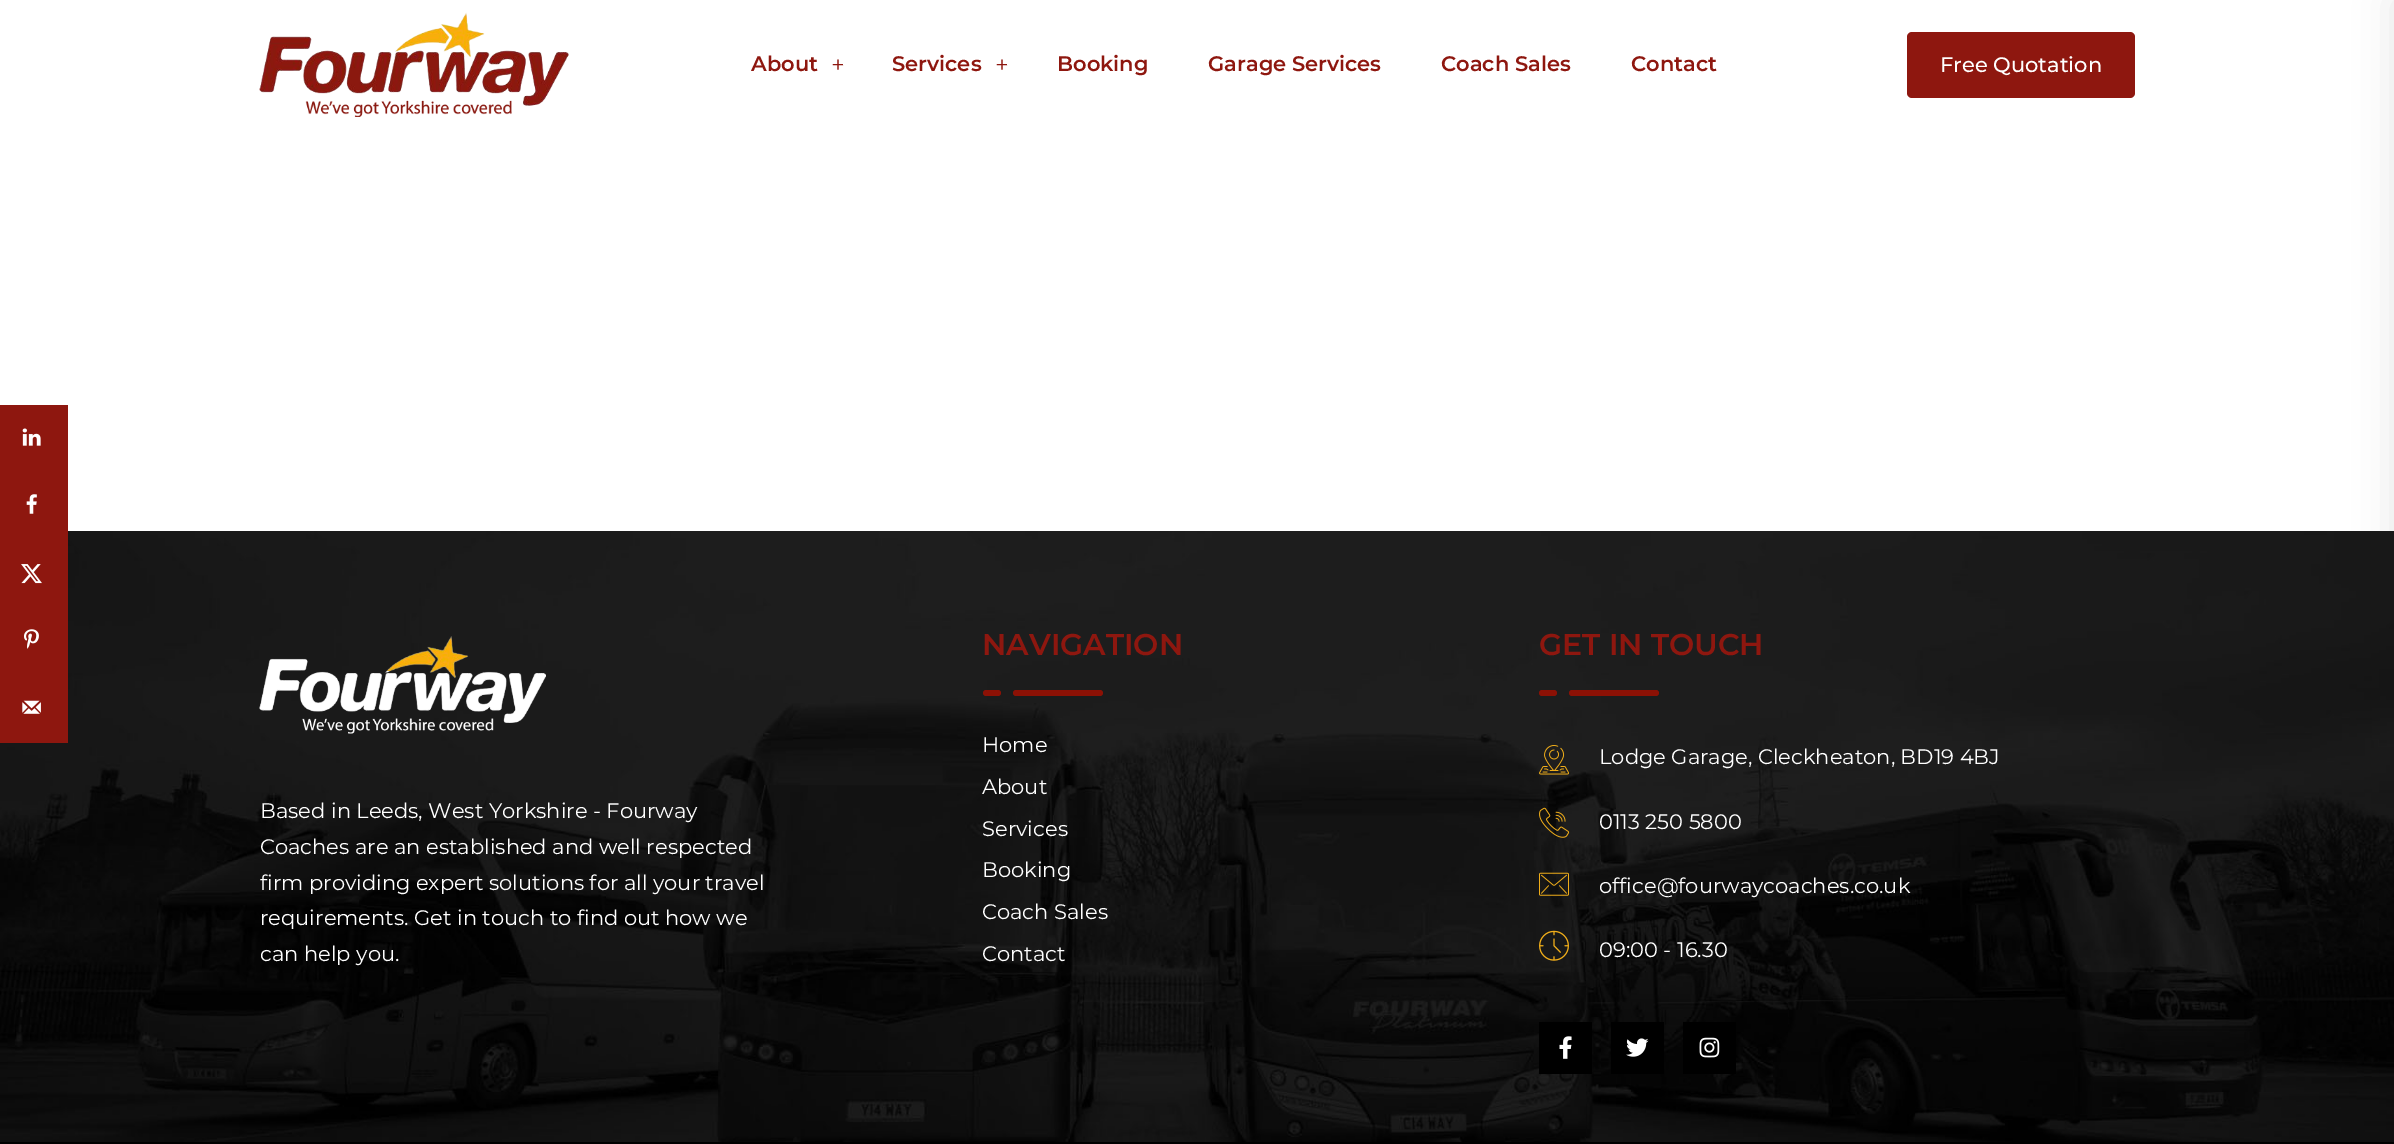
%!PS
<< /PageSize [2394 1144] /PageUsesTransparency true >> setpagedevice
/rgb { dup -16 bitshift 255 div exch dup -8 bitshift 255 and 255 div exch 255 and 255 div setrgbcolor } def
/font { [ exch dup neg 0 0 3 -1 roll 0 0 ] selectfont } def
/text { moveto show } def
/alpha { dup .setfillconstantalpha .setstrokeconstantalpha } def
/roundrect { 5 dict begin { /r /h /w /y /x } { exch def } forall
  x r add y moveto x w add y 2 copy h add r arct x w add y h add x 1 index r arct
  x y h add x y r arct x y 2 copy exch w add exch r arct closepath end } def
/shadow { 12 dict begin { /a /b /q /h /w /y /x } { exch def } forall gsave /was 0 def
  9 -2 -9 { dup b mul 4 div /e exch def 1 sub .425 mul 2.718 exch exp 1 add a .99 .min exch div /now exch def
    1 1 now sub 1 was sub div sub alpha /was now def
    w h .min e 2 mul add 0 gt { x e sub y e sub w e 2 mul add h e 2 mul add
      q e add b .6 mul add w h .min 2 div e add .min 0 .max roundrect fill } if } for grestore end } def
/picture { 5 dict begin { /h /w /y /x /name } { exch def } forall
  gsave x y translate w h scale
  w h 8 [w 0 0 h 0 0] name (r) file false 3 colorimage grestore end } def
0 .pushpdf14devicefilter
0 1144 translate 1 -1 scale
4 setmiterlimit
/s1 { /Montserrat-SemiBold 21 font 16#8E170F rgb } def
/s2 { /Montserrat-Regular 24 font 16#8E170F rgb } def
/s3 { /Montserrat-Medium 21 font 16#FFFFFF rgb } def
/s4 { /Montserrat-Regular 21 font 16#FFFFFF rgb } def
/s5 { /Montserrat-SemiBold 30 font 16#8E170F rgb } def
16#FFFFFF rgb
0 0 2394 1144 rectfill
(pic7.raw) 0 531 2394 611 picture
16#8E170F rgb
0 405 68 338 rectfill
(pic1.raw) 22 428 19 18 picture
(pic2.raw) 26 494 11 20 picture
(pic3.raw) 21 564 21 20 picture
(pic4.raw) 24 629 15 20 picture
(pic5.raw) 22 700 19 14 picture
(pic6.raw) 259 12 310 105 picture
s1
(About) 751 71 text
s2
(+) 831 73 text
s1
(Services) 892 71 text
s2
(+) 995 73 text
s1
(Booking) 1057 71 text
(Garage Services) 1208 71 text
(Coach Sales) 1441 71 text
(Contact) 1631 71 text
1907 32 228 66 5 roundrect fill
s3
(Free Quotation) 1940 72 text
16#000000 rgb
0 1142 2394 2 rectfill
2394 0 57 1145 0 19 0.1 shadow
(pic8.raw) 259 636 287 98 picture
s4
(Based in Leeds, West Yorkshire - Fourway) 260 818 text
(Coaches are an established and well respected) 260 854 text
(firm providing expert solutions for all your travel) 260 890 text
(requirements. Get in touch to find out how we) 260 925 text
(can help you.) 260 961 text
s5
(NAVIGATION) 982 655 text
16#8C1105 rgb
983 690 18 6 3 roundrect fill
1013 690 90 6 3 roundrect fill
s4
(Home) 982 752 text
(About) 982 794 text
(Services) 982 836 text
(Booking) 982 877 text
(Coach Sales) 982 919 text
(Contact) 982 961 text
s5
(GET IN TOUCH) 1539 655 text
16#8C1105 rgb
1539 690 18 6 3 roundrect fill
1569 690 90 6 3 roundrect fill
(pic9.raw) 1539 745 30 30 picture
s4
(Lodge Garage, Cleckheaton, BD19 4BJ) 1599 764 text
(pic10.raw) 1539 807 31 31 picture
(0113 250 5800) 1599 829 text
(pic11.raw) 1539 872 30 24 picture
(office@fourwaycoaches.co.uk) 1599 893 text
(pic12.raw) 1539 930 30 31 picture
(09:00 - 16.30) 1599 957 text
16#000000 rgb
1539 1022 53 52 rectfill
(pic13.raw) 1559 1036 13 23 picture
1611 1022 53 52 rectfill
(pic14.raw) 1626 1038 23 19 picture
1683 1022 53 52 rectfill
(pic15.raw) 1699 1037 21 21 picture
.poppdf14devicefilter showpage
